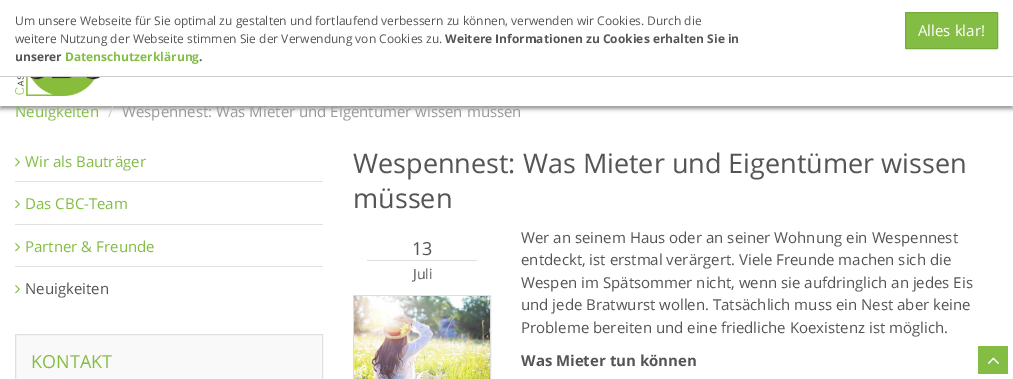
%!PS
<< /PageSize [1013 379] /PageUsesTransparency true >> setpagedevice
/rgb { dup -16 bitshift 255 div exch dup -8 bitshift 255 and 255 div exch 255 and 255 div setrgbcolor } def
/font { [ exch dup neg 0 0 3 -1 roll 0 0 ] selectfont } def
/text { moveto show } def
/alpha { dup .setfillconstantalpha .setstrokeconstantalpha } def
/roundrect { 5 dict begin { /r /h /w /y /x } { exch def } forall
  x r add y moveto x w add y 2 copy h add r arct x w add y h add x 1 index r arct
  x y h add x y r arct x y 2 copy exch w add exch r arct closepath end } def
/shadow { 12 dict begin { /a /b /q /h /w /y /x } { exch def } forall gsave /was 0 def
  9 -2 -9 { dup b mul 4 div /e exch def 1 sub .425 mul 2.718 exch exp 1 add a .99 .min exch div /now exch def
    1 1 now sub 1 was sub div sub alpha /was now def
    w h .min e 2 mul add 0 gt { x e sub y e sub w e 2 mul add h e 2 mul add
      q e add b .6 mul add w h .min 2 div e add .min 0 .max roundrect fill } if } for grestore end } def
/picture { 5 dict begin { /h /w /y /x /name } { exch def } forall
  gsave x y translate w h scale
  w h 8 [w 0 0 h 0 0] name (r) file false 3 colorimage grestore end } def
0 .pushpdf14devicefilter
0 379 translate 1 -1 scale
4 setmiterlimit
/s1 { /OpenSans-Regular 12 font 16#555555 rgb } def
/s2 { /OpenSans-Bold 12 font 16#555555 rgb } def
/s3 { /OpenSans-Bold 12 font 16#83BD44 rgb } def
/s4 { /OpenSans-Regular 15 font 16#FFFFFF rgb } def
/s5 { /OpenSans-Regular 15 font 16#83BD44 rgb } def
/s6 { /OpenSans-Regular 15 font 16#999999 rgb } def
/s7 { /OpenSans-Regular 15 font 16#CCCCCC rgb } def
/s8 { /OpenSans-Regular 15 font 16#555555 rgb } def
/s9 { /OpenSans-Regular 18 font 16#83BD44 rgb } def
/s10 { /OpenSans-Regular 27 font 16#555555 rgb } def
/s11 { /OpenSans-Regular 18 font 16#555555 rgb } def
/s12 { /OpenSans-Regular 14 font 16#555555 rgb } def
/s13 { /OpenSans-Bold 15 font 16#555555 rgb } def
16#FFFFFF rgb
0 0 1013 379 rectfill
16#000000 rgb
0 3 1013 106 0 2 0.4 shadow
16#FFFFFF rgb
0 0 1013 76 rectfill
16#CCCCCC rgb
0 76 1013 1 rectfill
s1
(Um unsere Webseite für Sie optimal zu gestalten und fortlaufend verbessern zu können, verwenden wir Cookies. Durch die) 15 25 text
(weitere Nutzung der Webseite stimmen Sie der Verwendung von Cookies zu.) 15 43 text
s2
(Weitere Informationen zu Cookies erhalten Sie in) 445 43 text
(unserer) 15 61 text
s3
(Datenschutzerklärung) 65 61 text
s2
(.) 199 61 text
16#83BD44 rgb
905.5 12.5 92 36 0.5 roundrect gsave fill grestore
16#76AB3C rgb
stroke
s4
(Alles klar!) 918 36 text
s5
(Neuigkeiten) 15 117 text
s6
(Wespennest: Was Mieter und Eigentümer wissen müssen) 122 117 text
16#FFFFFF rgb
0 77 1013 29 rectfill
(pic1.raw) 15 77 86 19 picture
s7
(/) 108 117 text
16#E0E0E0 rgb
15 181 308 1 rectfill
(pic2.raw) 15 158 5 9 picture
s5
(Wir als Bauträger) 25 167 text
16#E0E0E0 rgb
15 224 308 1 rectfill
(pic2.raw) 15 200 5 9 picture
s5
(Das CBC-Team) 25 209 text
16#E0E0E0 rgb
15 266 308 1 rectfill
(pic2.raw) 15 243 5 9 picture
s5
(Partner & Freunde) 25 252 text
(pic2.raw) 15 285 5 9 picture
s8
(Neuigkeiten) 25 294 text
16#F9F9F9 rgb
15.5 334.5 moveto 322.5 334.5 lineto 322.5 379.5 lineto 15.5 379.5 lineto closepath gsave fill grestore
16#E0E0E0 rgb
stroke
s9
(KONTAKT) 31 368 text
s10
(Wespennest: Was Mieter und Eigentümer wissen) 353 173 text
(müssen) 353 208 text
s11
(13) 412 255 text
16#DDDDDD rgb
367 260 110 1 rectfill
s12
(Juli) 413 279 text
16#DDDDDD rgb
353.5 295.5 137 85 0.5 roundrect stroke
(pic3.raw) 354 296 136 83 picture
s8
(Wer an seinem Haus oder an seiner Wohnung ein Wespennest) 521 243 text
(entdeckt, ist erstmal verärgert. Viele Freunde machen sich die) 521 265 text
(Wespen im Spätsommer nicht, wenn sie aufdringlich an jedes Eis) 521 288 text
(und jede Bratwurst wollen. Tatsächlich muss ein Nest aber keine) 521 310 text
(Probleme bereiten und eine friedliche Koexistenz ist möglich.) 521 333 text
s13
(Was Mieter tun können) 521 366 text
16#83BD44 rgb
978 346 30 28 rectfill
(pic4.raw) 987 357 12 7 picture
.poppdf14devicefilter showpage
